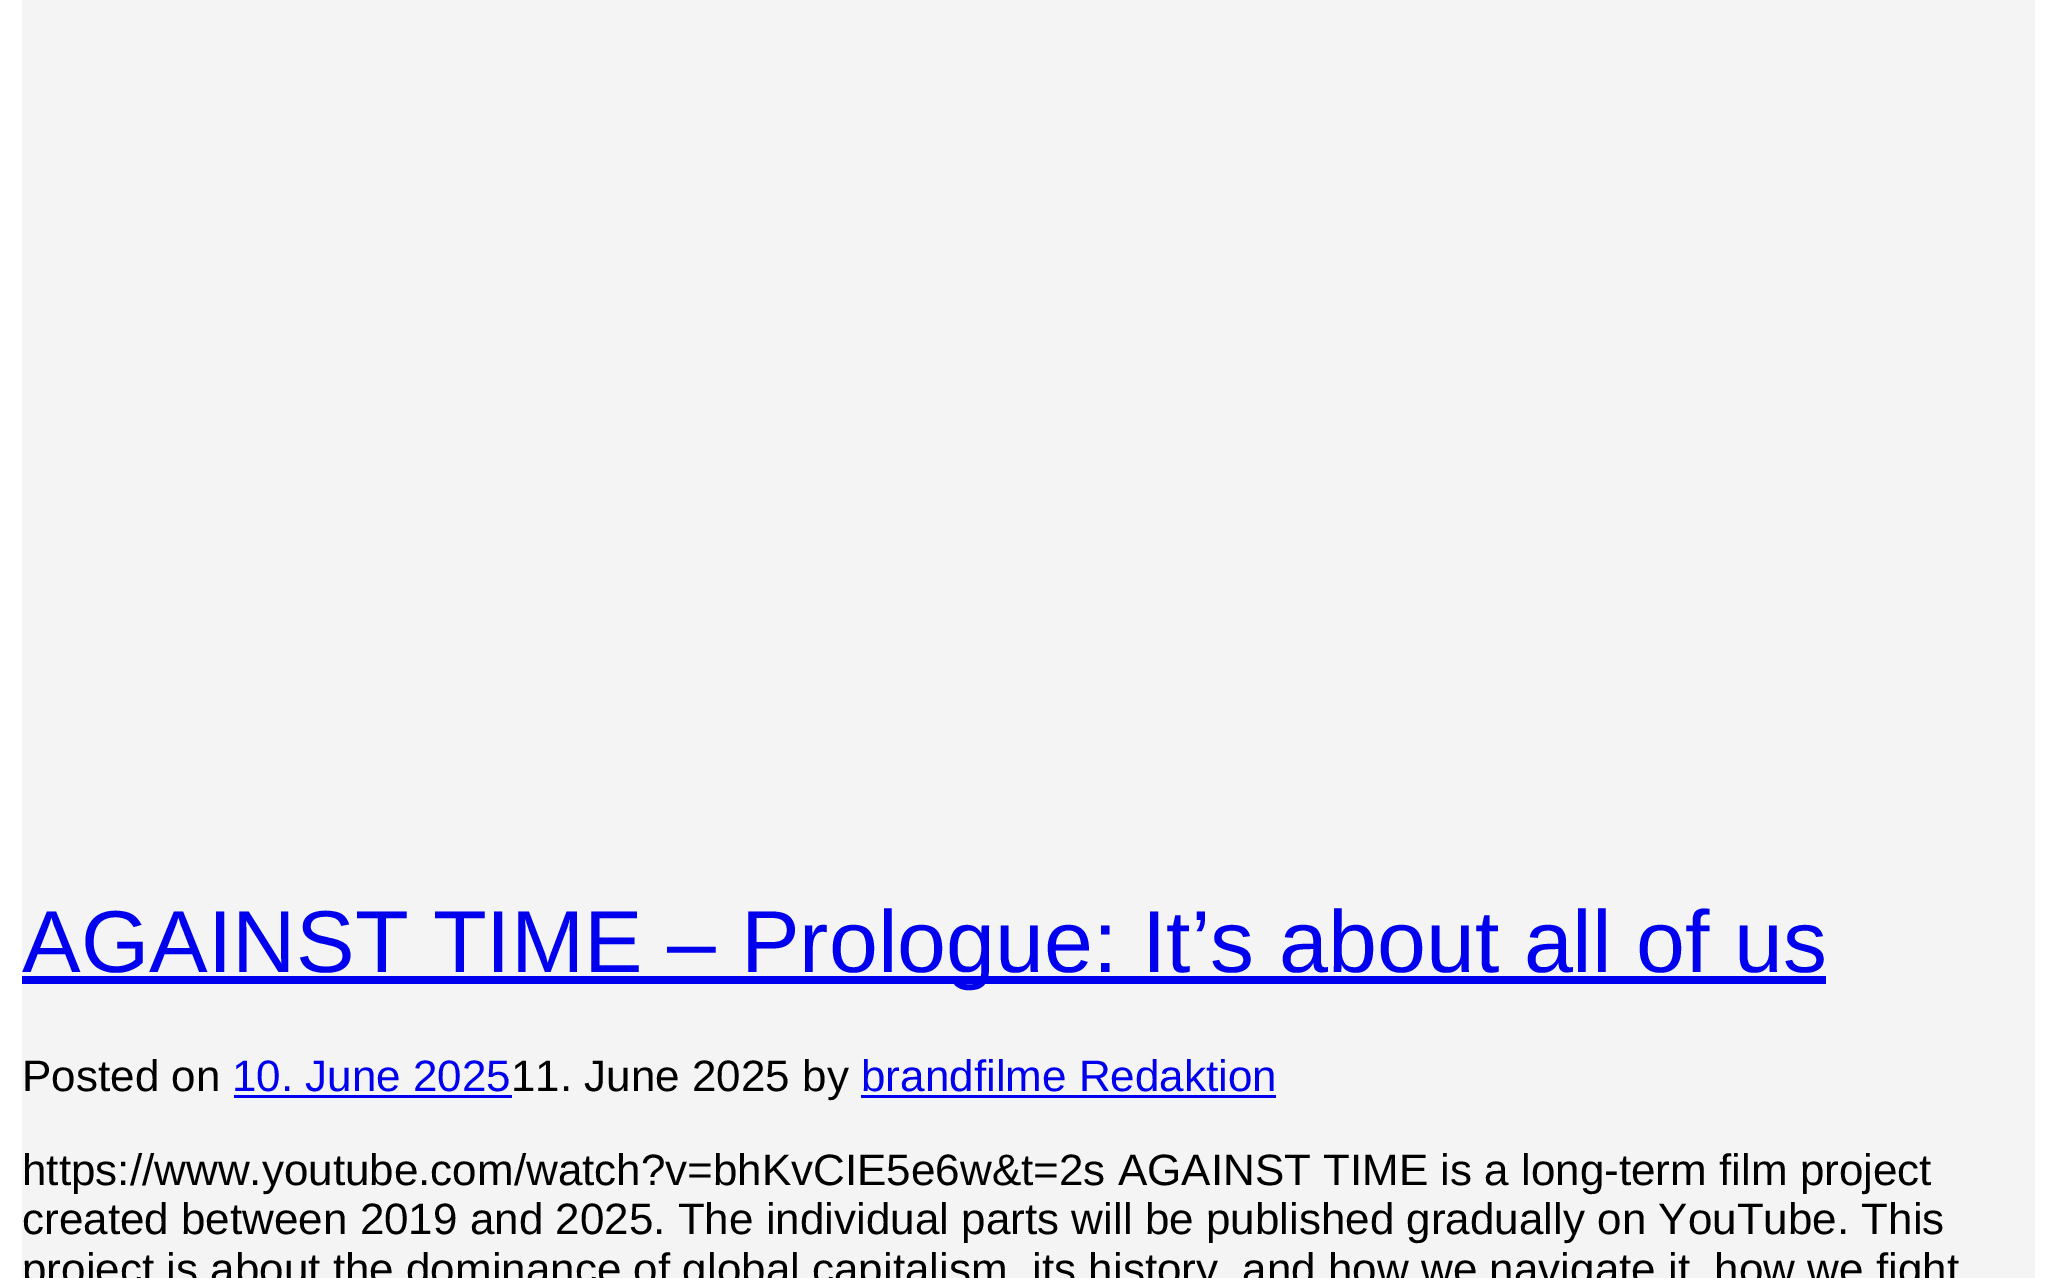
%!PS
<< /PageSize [2056 1278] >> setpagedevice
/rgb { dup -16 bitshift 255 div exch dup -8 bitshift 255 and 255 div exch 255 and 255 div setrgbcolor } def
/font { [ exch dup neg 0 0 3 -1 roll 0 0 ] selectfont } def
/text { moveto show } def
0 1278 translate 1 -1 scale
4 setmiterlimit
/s1 { /LiberationSans-Regular 88 font 16#0000EE rgb } def
/s2 { /LiberationSans-Regular 44 font 16#000000 rgb } def
/s3 { /LiberationSans-Regular 44 font 16#0000EE rgb } def
16#FFFFFF rgb
0 0 2056 1278 rectfill
16#F4F4F4 rgb
22 0 2013 1278 rectfill
16#0000EE rgb
22 976 1804 8 rectfill
s1
(AGAINST TIME – Prologue: It’s about all of us) 22 972 text
s2
(Posted on) 22 1091 text
s3
(10. June 2025) 232 1091 text
234 1095 278 3 rectfill
s2
(11. June 2025 by) 511 1091 text
s3
(brandfilme Redaktion) 861 1091 text
861 1095 415 3 rectfill
s2
(https://www.youtube.com/watch?v=bhKvCIE5e6w&t=2s AGAINST TIME is a long-term film project) 22 1185 text
(created between 2019 and 2025. The individual parts will be published gradually on YouTube. This) 22 1234 text
(project is about the dominance of global capitalism, its history, and how we navigate it, how we fight) 22 1284 text
showpage
